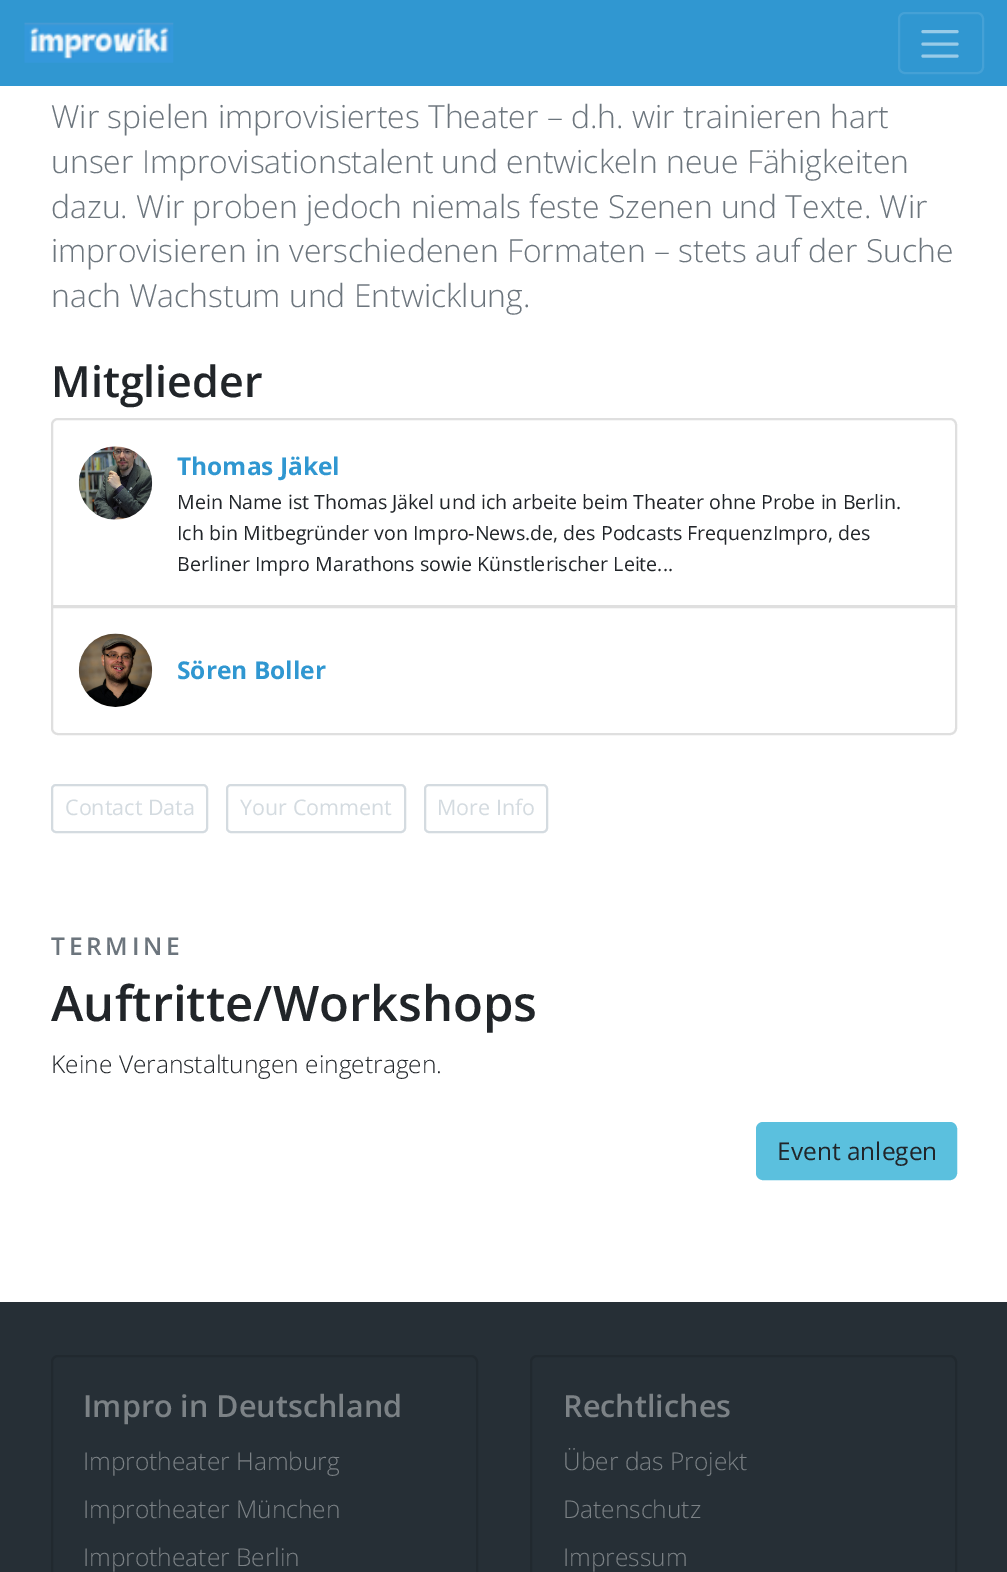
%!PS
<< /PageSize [1007 1572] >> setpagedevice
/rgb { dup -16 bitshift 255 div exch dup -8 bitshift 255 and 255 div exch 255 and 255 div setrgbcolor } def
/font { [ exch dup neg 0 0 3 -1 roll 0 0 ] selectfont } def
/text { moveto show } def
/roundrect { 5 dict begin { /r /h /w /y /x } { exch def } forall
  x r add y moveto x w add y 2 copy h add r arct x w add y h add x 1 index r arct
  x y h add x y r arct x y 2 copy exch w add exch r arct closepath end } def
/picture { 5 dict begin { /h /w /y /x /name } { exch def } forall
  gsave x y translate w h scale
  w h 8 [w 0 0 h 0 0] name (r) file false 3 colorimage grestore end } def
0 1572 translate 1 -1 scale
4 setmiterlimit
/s1 { /OpenSans-Light 31.85 font 16#6C757D rgb } def
/s2 { /OpenSans-SemiBold 43 font 16#212529 rgb } def
/s3 { /OpenSans-Bold 24.5 font 16#3097D1 rgb } def
/s4 { /OpenSans-Regular 19.6 font 16#212529 rgb } def
/s5 { /OpenSans-Regular 21.5 font 16#D4DBE0 rgb } def
/s6 { /OpenSans-SemiBold 49 font 16#212529 rgb } def
/s7 { /OpenSans-Light 24.5 font 16#212529 rgb } def
/s8 { /OpenSans-Regular 24.5 font 16#212529 rgb } def
/s9 { /OpenSans-SemiBold 30.6 font 16#7C8286 rgb } def
/s10 { /OpenSans-Light 24.5 font 16#7C8286 rgb } def
16#FFFFFF rgb
0 0 1007 1572 rectfill
16#3097D1 rgb
0 0 1007 86 rectfill
(pic1.raw) 24 22 150 41 picture
16#45A1D6 rgb
2 setlinewidth
899 13 84 60 6 roundrect stroke
16#98CBE8 rgb
3.1 setlinewidth
1 setlinecap
923 31.5 moveto 957 31.5 lineto 923 44 moveto 957 44 lineto 923 56 moveto 957 56 lineto stroke
s1
(Wir spielen improvisiertes Theater – d.h. wir trainieren hart) 51 128 text
(unser Improvisationstalent und entwickeln neue Fähigkeiten) 51 173 text
(dazu. Wir proben jedoch niemals feste Szenen und Texte. Wir) 51 218 text
(improvisieren in verschiedenen Formaten – stets auf der Suche) 51 262 text
(nach Wachstum und Entwicklung.) 51 307 text
s2
(Mitglieder) 51 397 text
16#DFDFDF rgb
2 setlinewidth
0 setlinecap
58 419 moveto 950 419 lineto 953.5 419 956 421.5 956 425 curveto 956 606 lineto 52 606 lineto 52 425 lineto 52 421.5 54.5 419 58 419 curveto closepath stroke
(pic2.raw) 78 446 75 74 picture
s3
(Thomas Jäkel) 177 475 text
s4
(Mein Name ist Thomas Jäkel und ich arbeite beim Theater ohne Probe in Berlin.) 177 509 text
(Ich bin Mitbegründer von Impro-News.de, des Podcasts FrequenzImpro, des) 177 540 text
(Berliner Impro Marathons sowie Künstlerischer Leite...) 177 571 text
16#FFFFFF rgb
52 607 moveto 956 607 lineto 956 728 lineto 956 731.5 953.5 734 950 734 curveto 58 734 lineto 54.5 734 52 731.5 52 728 curveto closepath gsave fill grestore
16#DFDFDF rgb
stroke
(pic3.raw) 78 633 75 74 picture
s3
(Sören Boller) 177 679 text
16#D4DBE0 rgb
52 785 155 47 4 roundrect stroke
s5
(Contact Data) 65 815 text
227 785 178 47 4 roundrect stroke
(Your Comment) 240 815 text
425 785 122 47 4 roundrect stroke
(More Info) 437 815 text
/OpenSans-SemiBold 24.5 font
16#6C757D rgb
51 955 moveto 3.75 0 (TERMINE) ashow
s6
(Auftritte/Workshops) 51 1021 text
s7
(Keine Veranstaltungen eingetragen.) 51 1073 text
16#5BC0DE rgb
757 1123 199 56 6 roundrect gsave fill grestore
stroke
s8
(Event anlegen) 777 1160 text
16#262F36 rgb
0 1302 1007 270 rectfill
16#21292F rgb
52 1356 425 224 6 roundrect stroke
s9
(Impro in Deutschland) 83 1417 text
s10
(Improtheater Hamburg) 83 1470 text
(Improtheater München) 83 1518 text
(Improtheater Berlin) 83 1566 text
16#21292F rgb
531 1356 425 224 6 roundrect stroke
s9
(Rechtliches) 563 1417 text
s10
(Über das Projekt) 563 1470 text
(Datenschutz) 563 1518 text
(Impressum) 563 1566 text
showpage
